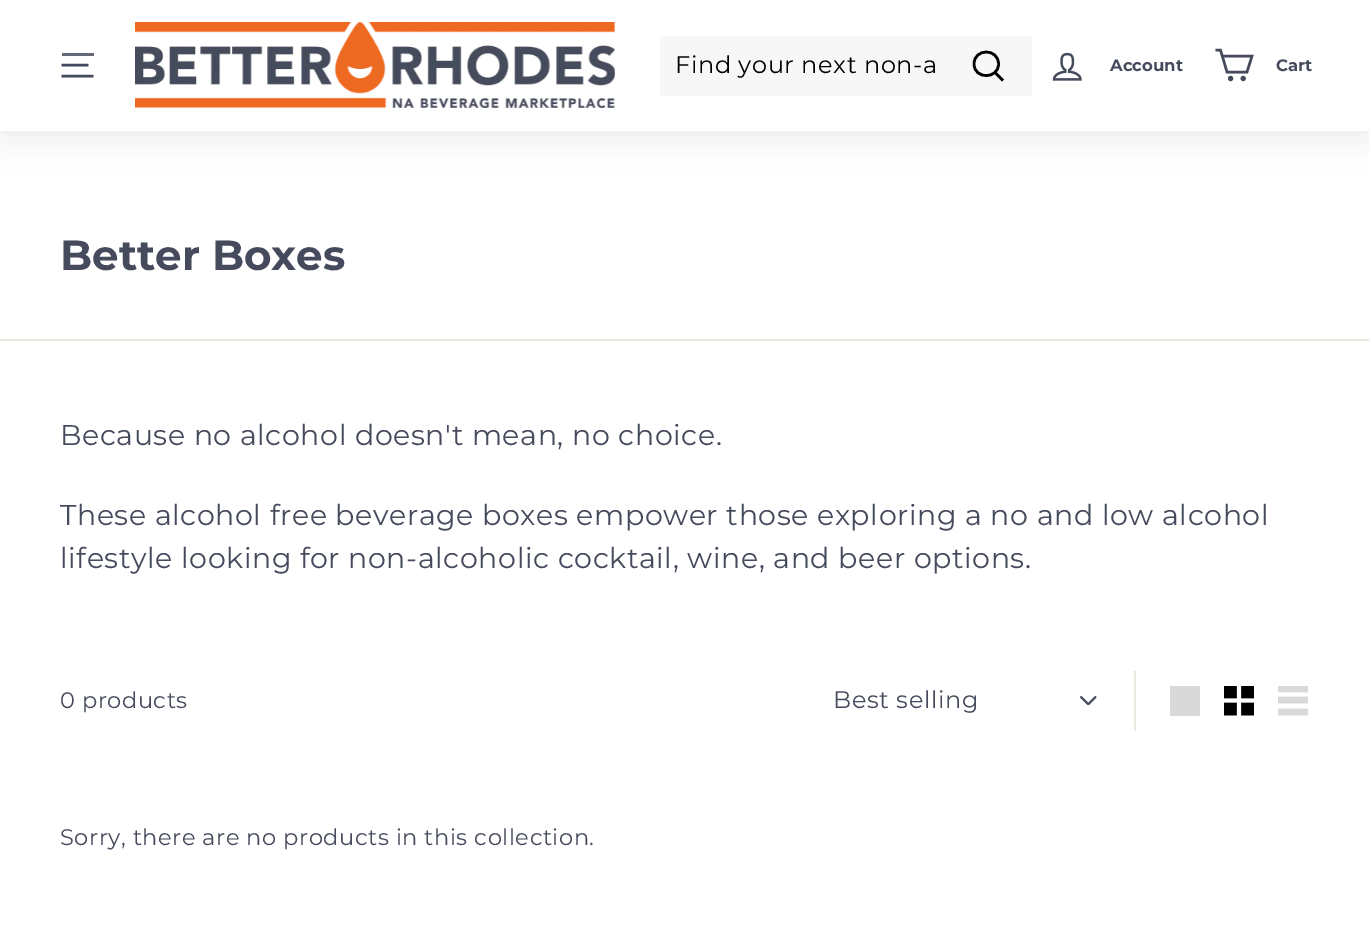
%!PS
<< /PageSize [1369 950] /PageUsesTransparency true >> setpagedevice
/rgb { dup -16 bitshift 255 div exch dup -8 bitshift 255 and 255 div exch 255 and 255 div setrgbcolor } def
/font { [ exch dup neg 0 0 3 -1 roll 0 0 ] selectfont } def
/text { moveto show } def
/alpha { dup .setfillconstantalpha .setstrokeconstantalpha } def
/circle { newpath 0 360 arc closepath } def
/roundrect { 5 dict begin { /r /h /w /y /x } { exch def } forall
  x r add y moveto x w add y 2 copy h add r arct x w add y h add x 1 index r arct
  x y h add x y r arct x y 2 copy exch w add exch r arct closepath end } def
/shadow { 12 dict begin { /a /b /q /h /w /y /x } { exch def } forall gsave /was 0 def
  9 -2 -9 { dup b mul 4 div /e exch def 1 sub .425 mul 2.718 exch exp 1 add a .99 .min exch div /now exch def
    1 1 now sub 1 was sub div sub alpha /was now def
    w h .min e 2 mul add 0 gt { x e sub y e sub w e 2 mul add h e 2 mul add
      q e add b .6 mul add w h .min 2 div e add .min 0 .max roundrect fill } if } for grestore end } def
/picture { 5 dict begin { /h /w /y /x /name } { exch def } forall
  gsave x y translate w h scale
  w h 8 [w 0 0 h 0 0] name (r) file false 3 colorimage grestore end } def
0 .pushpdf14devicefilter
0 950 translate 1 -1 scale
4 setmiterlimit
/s1 { /Montserrat-Bold 16.5 font 16#454A5C rgb } def
/s2 { /Montserrat-Bold 42 font 16#454A5C rgb } def
16#FFFFFF rgb
0 0 1369 950 rectfill
16#000000 rgb
0 0 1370 131 0 19 0.1 shadow
16#FFFFFF rgb
0 0 1369 131 rectfill
16#646877 rgb
62 53 32 3 rectfill
16#454A5C rgb
2.5 setlinewidth
61.5 65 moveto 88.5 65 lineto 61.5 76 moveto 93.5 76 lineto stroke
(pic1.raw) 135 22 480 86 picture
16#F7F7F7 rgb
660 36 372 60 rectfill
/Montserrat-Regular 24 font
16#000000 rgb
675 73 moveto 0.6 0 (Find your next non-a) ashow
2.6 setlinewidth
998.5 64 moveto 998.5 79.5 974 79.5 974 64 curveto 974 48 998.5 48 998.5 64 curveto closepath 1003 80.5 moveto 995 72.5 lineto stroke
(pic2.raw) 1052 52 30 29 picture
s1
(Account) 1110 71 text
2.5 setlinewidth
1222.5 56 moveto 1252 56 lineto 1247 72 lineto 1227 72 lineto 1220.5 50 lineto 1215.5 50 lineto stroke
1230.6 78.5 1.3 circle stroke
1243.2 78.5 1.3 circle stroke
(Cart) 1276 71 text
s2
(Better Boxes) 60 270 text
16#E8E8E1 rgb
0 339 1369 2 rectfill
/Montserrat-Regular 28.5 font
16#454A5C rgb
60 445 moveto 0.55 0 (Because no alcohol doesn't mean, no choice.) ashow
60 525 moveto 0.55 0 (These alcohol free beverage boxes empower those exploring a no and low alcohol) ashow
60 568 moveto 0.55 0 (lifestyle looking for non-alcoholic cocktail, wine, and beer options.) ashow
/Montserrat-Regular 22.5 font
60 708 moveto 0.55 0 (0 products) ashow
16#E8E8E1 rgb
1134 671 2 60 rectfill
(pic3.raw) 1080 696 17 9 picture
/Montserrat-Regular 24 font
16#454A5C rgb
833 708 moveto 0.6 0 (Best selling) ashow
16#D9D9D9 rgb
1170 686 30 30 rectfill
(pic4.raw) 1224 686 30 30 picture
(pic5.raw) 1278 686 30 30 picture
/Montserrat-Regular 22.5 font
16#454A5C rgb
60 845 moveto 0.55 0 (Sorry, there are no products in this collection.) ashow
.poppdf14devicefilter showpage
